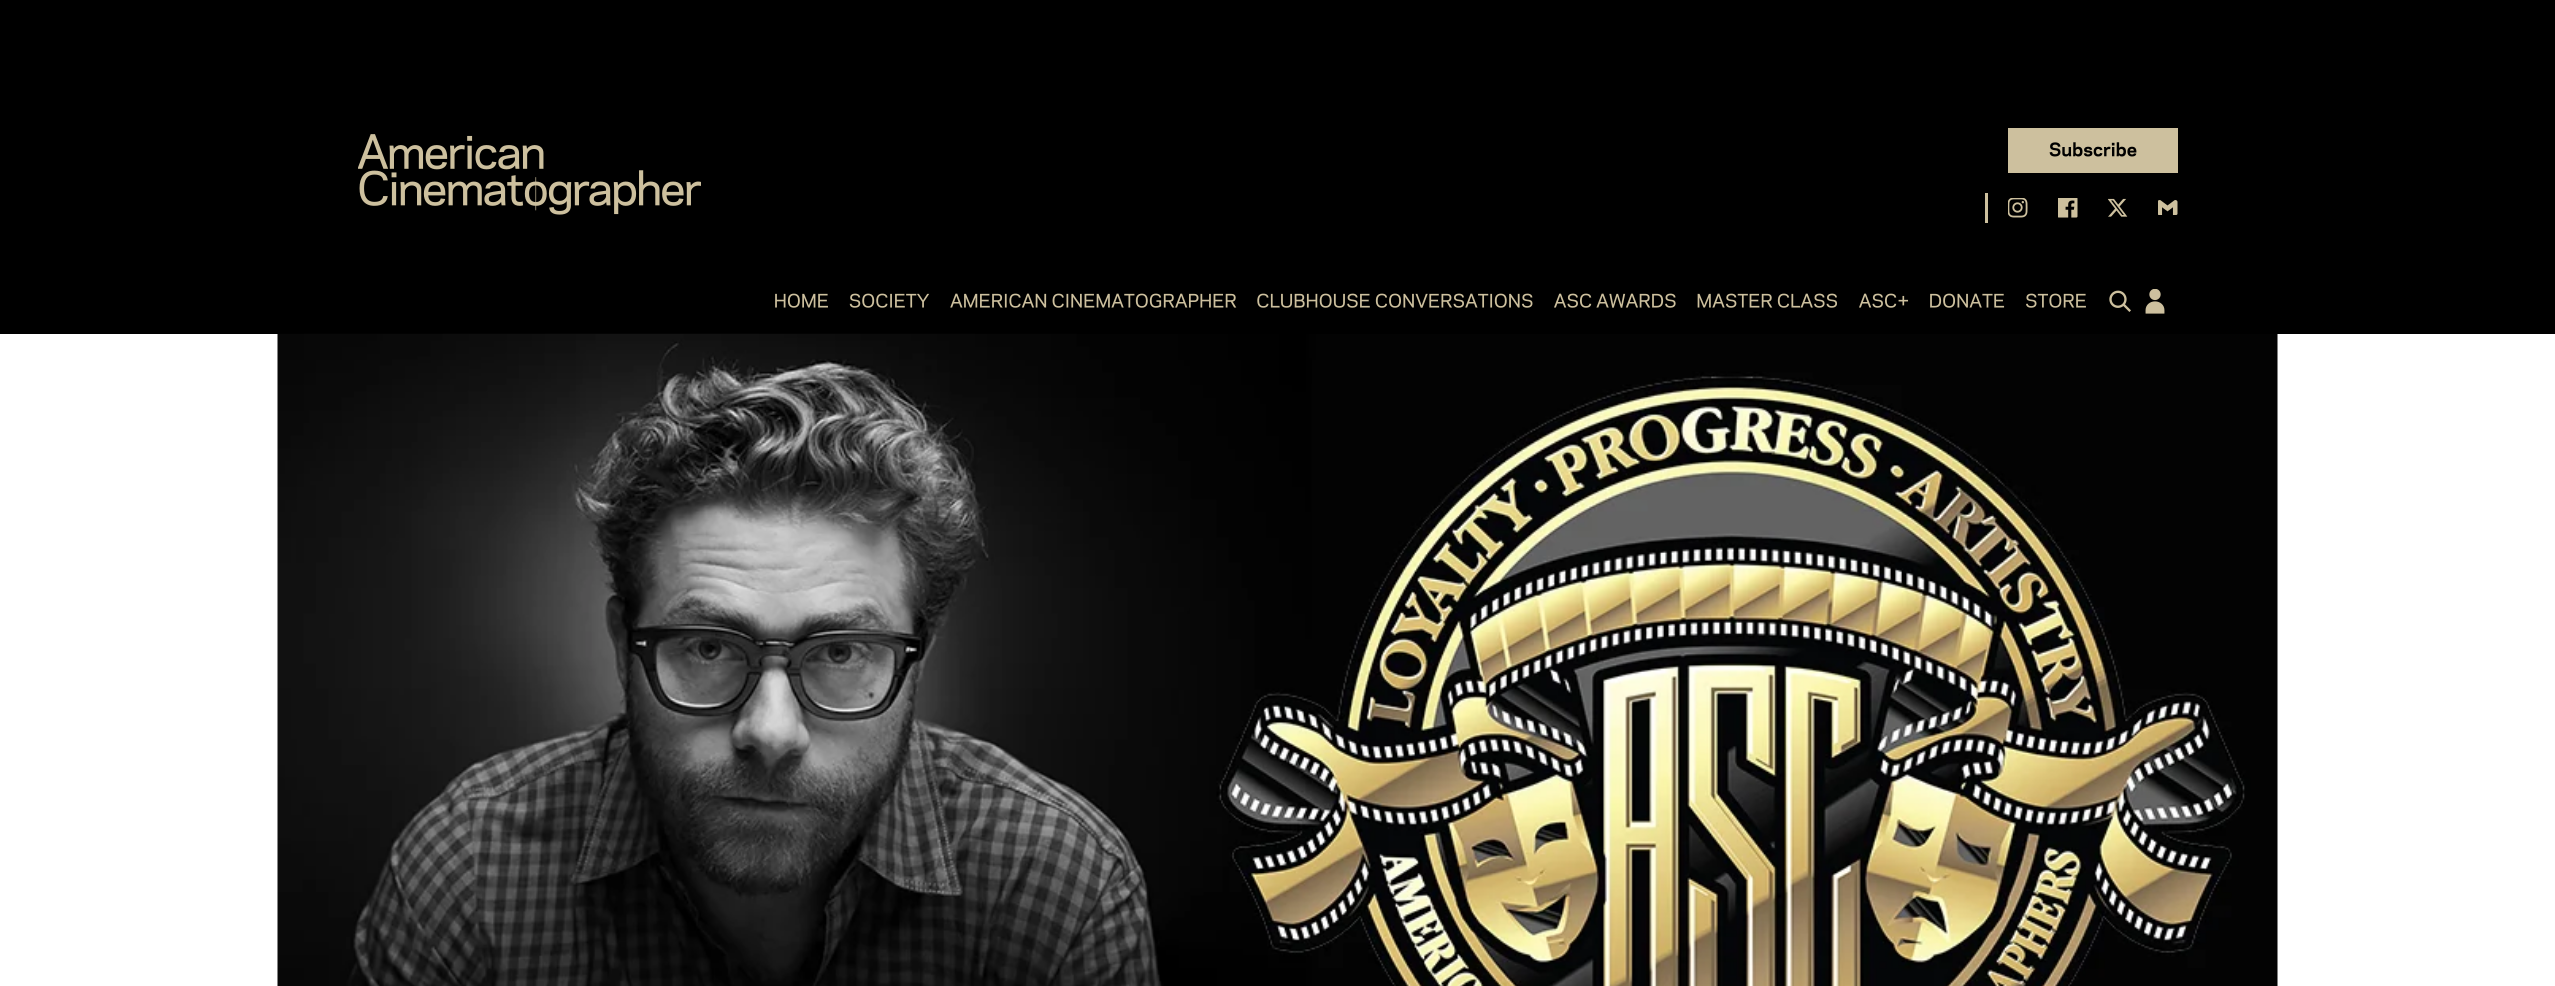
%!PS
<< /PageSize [2555 986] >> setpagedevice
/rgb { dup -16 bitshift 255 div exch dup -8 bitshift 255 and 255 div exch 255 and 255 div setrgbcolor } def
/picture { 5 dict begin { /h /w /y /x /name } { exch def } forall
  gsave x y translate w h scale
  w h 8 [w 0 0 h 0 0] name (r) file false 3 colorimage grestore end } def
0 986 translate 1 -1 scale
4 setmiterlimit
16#FFFFFF rgb
0 0 2555 986 rectfill
16#000000 rgb
0 0 2555 334 rectfill
(pic1.raw) 358 134 343 81 picture
16#CDC09E rgb
1985 193 3 30 rectfill
2008 128 170 45 rectfill
(pic2.raw) 2049 142 88 15 picture
(pic3.raw) 2008 198 20 20 picture
(pic4.raw) 2058 198 20 20 picture
(pic5.raw) 2108 198 20 19 picture
(pic6.raw) 2158 200 20 15 picture
(pic7.raw) 775 293 53 15 picture
(pic8.raw) 849 293 81 15 picture
(pic9.raw) 950 293 287 15 picture
(pic10.raw) 1257 293 276 15 picture
(pic11.raw) 1554 293 122 15 picture
(pic12.raw) 1697 293 140 15 picture
(pic13.raw) 1859 293 50 15 picture
(pic14.raw) 1930 293 75 15 picture
(pic15.raw) 2026 293 60 15 picture
(pic16.raw) 2109 290 22 22 picture
(pic17.raw) 2145 289 20 25 picture
(pic18.raw) 277 333 2001 653 picture
showpage
